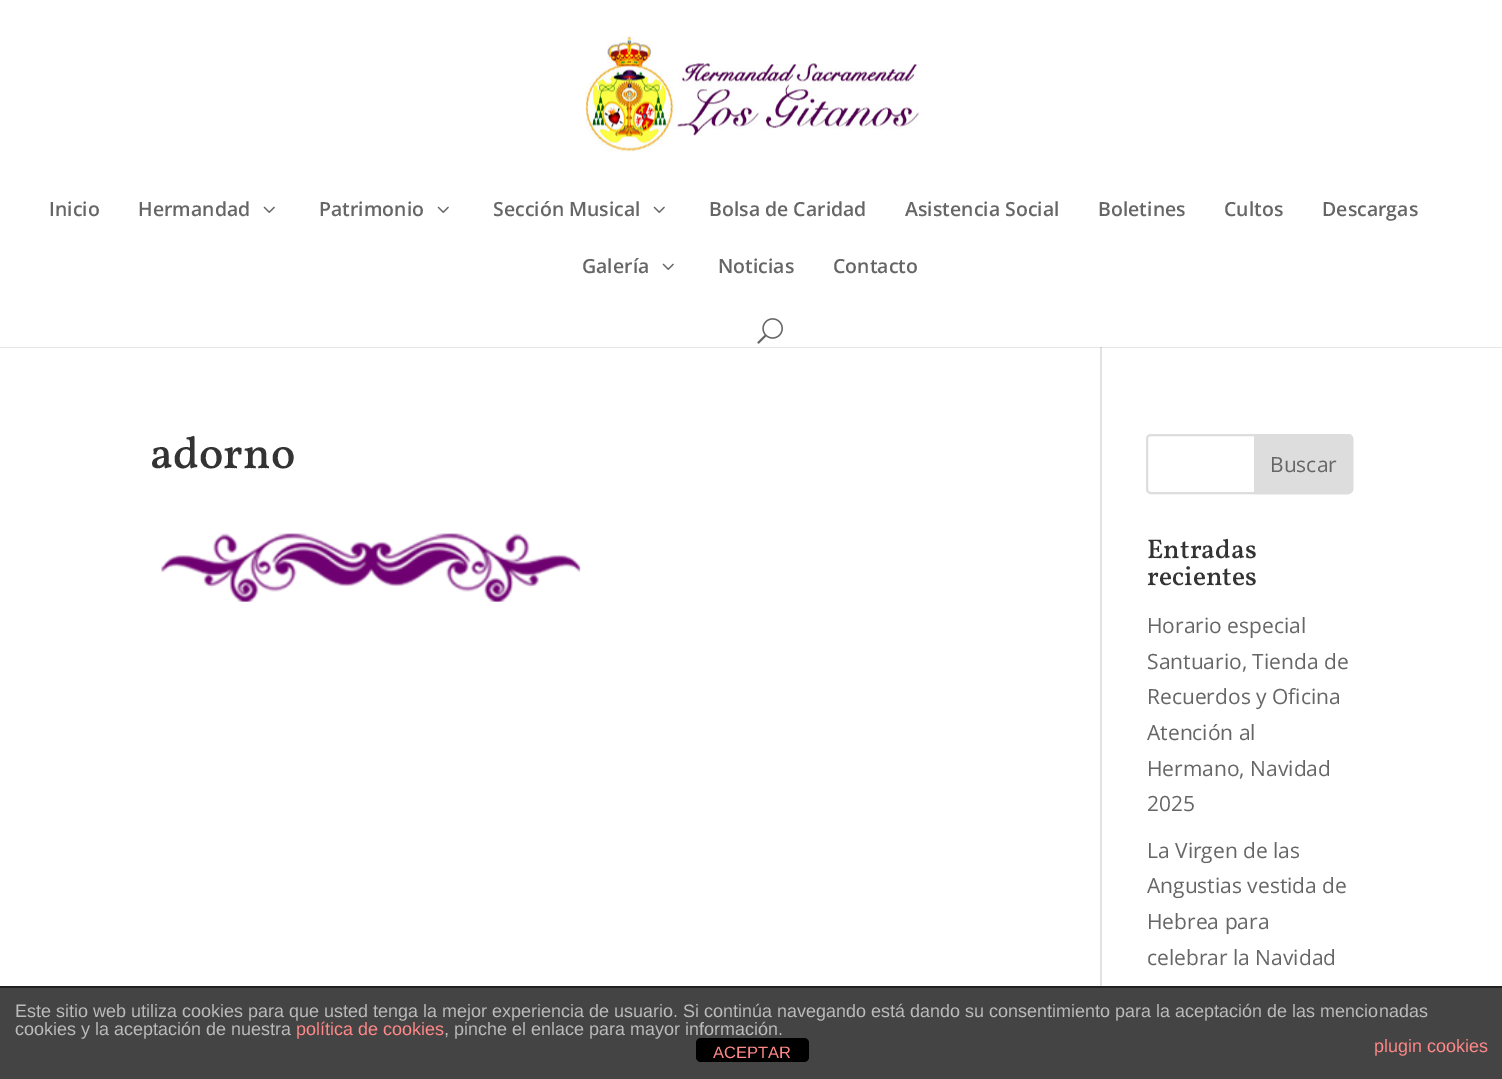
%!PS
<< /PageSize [1502 1079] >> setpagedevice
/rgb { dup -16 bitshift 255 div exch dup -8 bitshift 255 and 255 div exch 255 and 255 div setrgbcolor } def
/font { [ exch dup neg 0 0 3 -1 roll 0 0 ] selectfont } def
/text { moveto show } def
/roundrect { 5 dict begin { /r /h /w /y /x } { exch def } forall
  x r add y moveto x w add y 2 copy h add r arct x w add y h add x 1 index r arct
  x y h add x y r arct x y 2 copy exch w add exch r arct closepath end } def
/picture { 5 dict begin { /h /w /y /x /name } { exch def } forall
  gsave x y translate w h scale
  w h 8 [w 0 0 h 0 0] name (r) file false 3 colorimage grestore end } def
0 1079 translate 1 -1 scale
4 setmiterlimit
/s1 { /OpenSans-SemiBold 19.5 font 16#666666 rgb } def
/s2 { /Vollkorn-Medium 45 font 16#333333 rgb } def
/s3 { /OpenSans-Regular 21 font 16#666666 rgb } def
/s4 { /Vollkorn-Medium 27 font 16#333333 rgb } def
/s5 { /LiberationSans-Regular 18 font 16#BBBBBB rgb } def
/s6 { /LiberationSans-Regular 18 font 16#FF8888 rgb } def
/s7 { /LiberationSans-Regular 16.5 font 16#FF8888 rgb } def
16#FFFFFF rgb
0 0 1502 1079 rectfill
16#E6E6E6 rgb
0 347 1502 1 rectfill
(pic1.raw) 585 35 334 117 picture
s1
(Inicio) 49 216 text
(Hermandad) 138 216 text
(pic2.raw) 263 206 12 7 picture
(Patrimonio) 319 216 text
(pic2.raw) 437 206 12 7 picture
(Sección Musical) 493 216 text
(pic2.raw) 653 206 12 7 picture
(Bolsa de Caridad) 709 216 text
(Asistencia Social) 905 216 text
(Boletines) 1098 216 text
(Cultos) 1224 216 text
(Descargas) 1322 216 text
(Galería) 582 273 text
(pic2.raw) 662 263 12 7 picture
(Noticias) 718 273 text
(Contacto) 833 273 text
(pic3.raw) 757 318 26 26 picture
16#E2E2E2 rgb
1100 347 2 639 rectfill
16#CBCBCB rgb
1100 347 2 1 rectfill
s2
(adorno) 150 468 text
(pic4.raw) 161 533 420 69 picture
16#DDDDDD rgb
2 setlinewidth
1147 435 205 58 4 roundrect stroke
1255 435 moveto 1348 435 lineto 1350 435 1352 437 1352 439 curveto 1352 489 lineto 1352 491 1350 493 1348 493 curveto 1255 493 lineto closepath gsave fill grestore
stroke
s3
(Buscar) 1270 472 text
s4
(Entradas) 1147 558 text
(recientes) 1147 585 text
s3
(Horario especial) 1147 633 text
(Santuario, Tienda de) 1147 669 text
(Recuerdos y Oficina) 1147 704 text
(Atención al) 1147 740 text
(Hermano, Navidad) 1147 776 text
(2025) 1147 811 text
(La Virgen de las) 1147 858 text
(Angustias vestida de) 1147 893 text
(Hebrea para) 1147 929 text
(celebrar la Navidad) 1147 965 text
16#444444 rgb
0 988 1502 91 rectfill
16#222222 rgb
0 986 1502 2 rectfill
s5
(Este sitio web utiliza cookies para que usted tenga la mejor experiencia de usuario. Si continúa navegando está dando su consentimiento para la aceptación de las mencionadas) 15 1017 text
(cookies y la aceptación de nuestra) 15 1035 text
s6
(política de cookies) 296 1035 text
16#000000 rgb
696 1038 113 24 5 roundrect fill
s5
(, pinche el enlace para mayor información.) 444 1035 text
s6
(plugin cookies) 1374 1052 text
s7
(ACEPTAR) 713 1058 text
showpage
